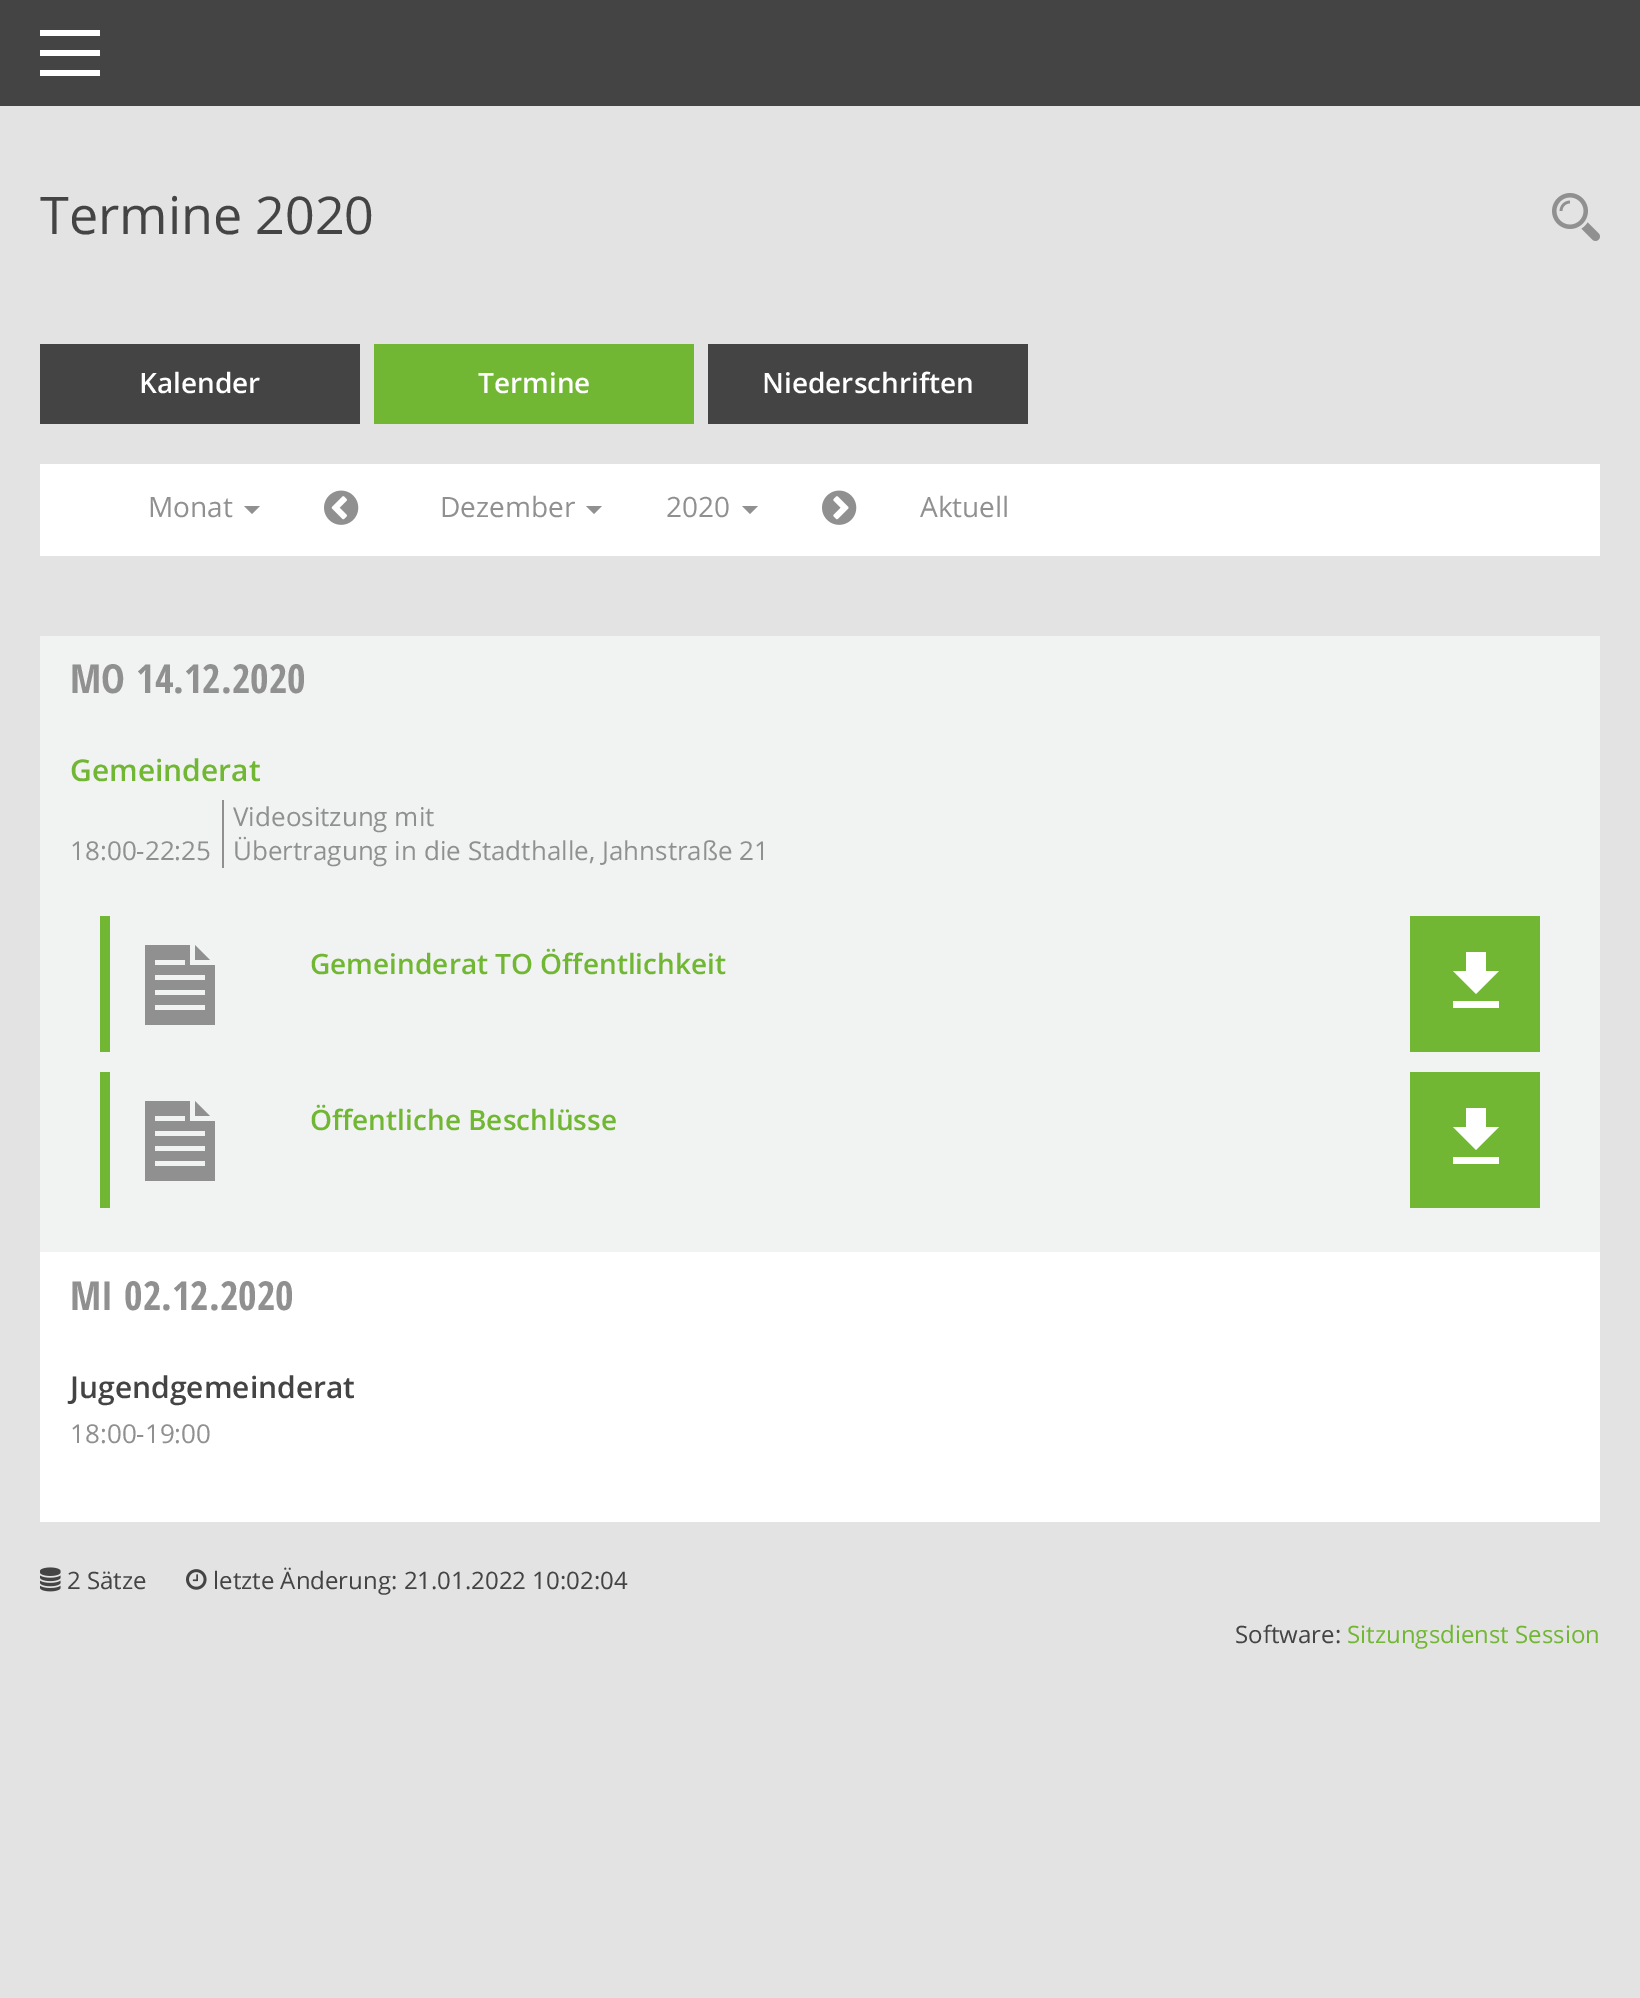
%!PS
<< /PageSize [1640 1998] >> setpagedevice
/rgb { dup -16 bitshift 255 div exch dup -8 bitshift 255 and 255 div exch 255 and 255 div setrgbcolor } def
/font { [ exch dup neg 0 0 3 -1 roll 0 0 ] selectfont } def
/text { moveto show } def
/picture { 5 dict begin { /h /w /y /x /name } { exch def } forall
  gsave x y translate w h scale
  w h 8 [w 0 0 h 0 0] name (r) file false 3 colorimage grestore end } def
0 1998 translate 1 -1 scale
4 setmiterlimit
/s1 { /OpenSans-Regular 52 font 16#444444 rgb } def
/s2 { /OpenSans-SemiBold 28 font 16#FFFFFF rgb } def
/s3 { /OpenSans-Regular 28 font 16#909090 rgb } def
/s4 { /OpenSansCondensed-Bold 40 font 16#909090 rgb } def
/s5 { /OpenSans-SemiBold 30 font 16#71B733 rgb } def
/s6 { /OpenSans-Regular 26 font 16#909090 rgb } def
/s7 { /OpenSans-SemiBold 28 font 16#71B733 rgb } def
/s8 { /OpenSans-SemiBold 30 font 16#444444 rgb } def
/s9 { /OpenSans-Regular 24 font 16#444444 rgb } def
/s10 { /OpenSans-Regular 24 font 16#71B733 rgb } def
16#E3E3E3 rgb
0 0 1640 1998 rectfill
16#444444 rgb
0 0 1640 106 rectfill
16#FFFFFF rgb
40 30 60 6 rectfill
40 50 60 6 rectfill
40 70 60 6 rectfill
s1
(Termine 2020) 40 234 text
(pic1.raw) 1552 193 48 48 picture
40 344 320 80 rectfill
s2
(Kalender) 139 393 text
16#71B733 rgb
374 344 320 80 rectfill
s2
(Termine) 478 393 text
16#444444 rgb
708 344 320 80 rectfill
s2
(Niederschriften) 762 393 text
40 464 1560 92 rectfill
s3
(Monat) 148 517 text
244 506 moveto 260 506 lineto 252 514 lineto closepath fill
(pic2.raw) 324 490 35 35 picture
(Dezember) 440 517 text
586 506 moveto 602 506 lineto 594 514 lineto closepath fill
(2020) 666 517 text
742 506 moveto 758 506 lineto 750 514 lineto closepath fill
(pic3.raw) 822 490 35 35 picture
(Aktuell) 920 517 text
16#FFFFFF rgb
40 1252 1560 270 rectfill
16#F0F3F2 rgb
40 636 1560 616 rectfill
s4
(MO) 70 693 text
(14.12.2020) 136 693 text
s5
(Gemeinderat) 70 781 text
s6
(18:00-22:25) 70 860 text
222 800 2 68 rectfill
(Videositzung mit) 233 826 text
(Übertragung in die Stadthalle, Jahnstraße 21) 233 860 text
16#71B733 rgb
100 916 10 136 rectfill
16#909090 rgb
210 960 moveto 195 960 lineto 195 945 lineto closepath 215 965 moveto 215 1025 lineto 145 1025 lineto 145 945 lineto 190 945 lineto 190 965 lineto closepath 155 965 moveto 185 965 lineto 185 960 lineto 155 960 lineto closepath 205 1005 moveto 155 1005 lineto 155 1010 lineto 205 1010 lineto closepath 205 990 moveto 155 990 lineto 155 995 lineto 205 995 lineto closepath 205 975 moveto 155 975 lineto 155 980 lineto 205 980 lineto closepath fill
s7
(Gemeinderat TO Öffentlichkeit) 310 974 text
1410 916 130 136 rectfill
16#FFFFFF rgb
1499 971 moveto 1486 971 lineto 1486 952 lineto 1466 952 lineto 1466 971 lineto 1453 971 lineto 1476 994 lineto closepath 1453 1001 moveto 1453 1008 lineto 1499 1008 lineto 1499 1001 lineto closepath fill
16#71B733 rgb
100 1072 10 136 rectfill
16#909090 rgb
210 1116 moveto 195 1116 lineto 195 1101 lineto closepath 215 1121 moveto 215 1181 lineto 145 1181 lineto 145 1101 lineto 190 1101 lineto 190 1121 lineto closepath 155 1121 moveto 185 1121 lineto 185 1116 lineto 155 1116 lineto closepath 205 1161 moveto 155 1161 lineto 155 1166 lineto 205 1166 lineto closepath 205 1146 moveto 155 1146 lineto 155 1151 lineto 205 1151 lineto closepath 205 1131 moveto 155 1131 lineto 155 1136 lineto 205 1136 lineto closepath fill
s7
(Öffentliche Beschlüsse) 310 1130 text
1410 1072 130 136 rectfill
16#FFFFFF rgb
1499 1127 moveto 1486 1127 lineto 1486 1108 lineto 1466 1108 lineto 1466 1127 lineto 1453 1127 lineto 1476 1150 lineto closepath 1453 1157 moveto 1453 1164 lineto 1499 1164 lineto 1499 1157 lineto closepath fill
s4
(MI) 70 1310 text
(02.12.2020) 124 1310 text
s8
(Jugendgemeinderat) 70 1398 text
s6
(18:00-19:00) 70 1443 text
(pic4.raw) 40 1567 21 25 picture
s9
(2 Sätze) 67 1589 text
(pic5.raw) 186 1569 21 21 picture
(letzte Änderung: 21.01.2022 10:02:04) 213 1589 text
(Software:) 1235 1643 text
s10
(Sitzungsdienst Session) 1347 1643 text
showpage
